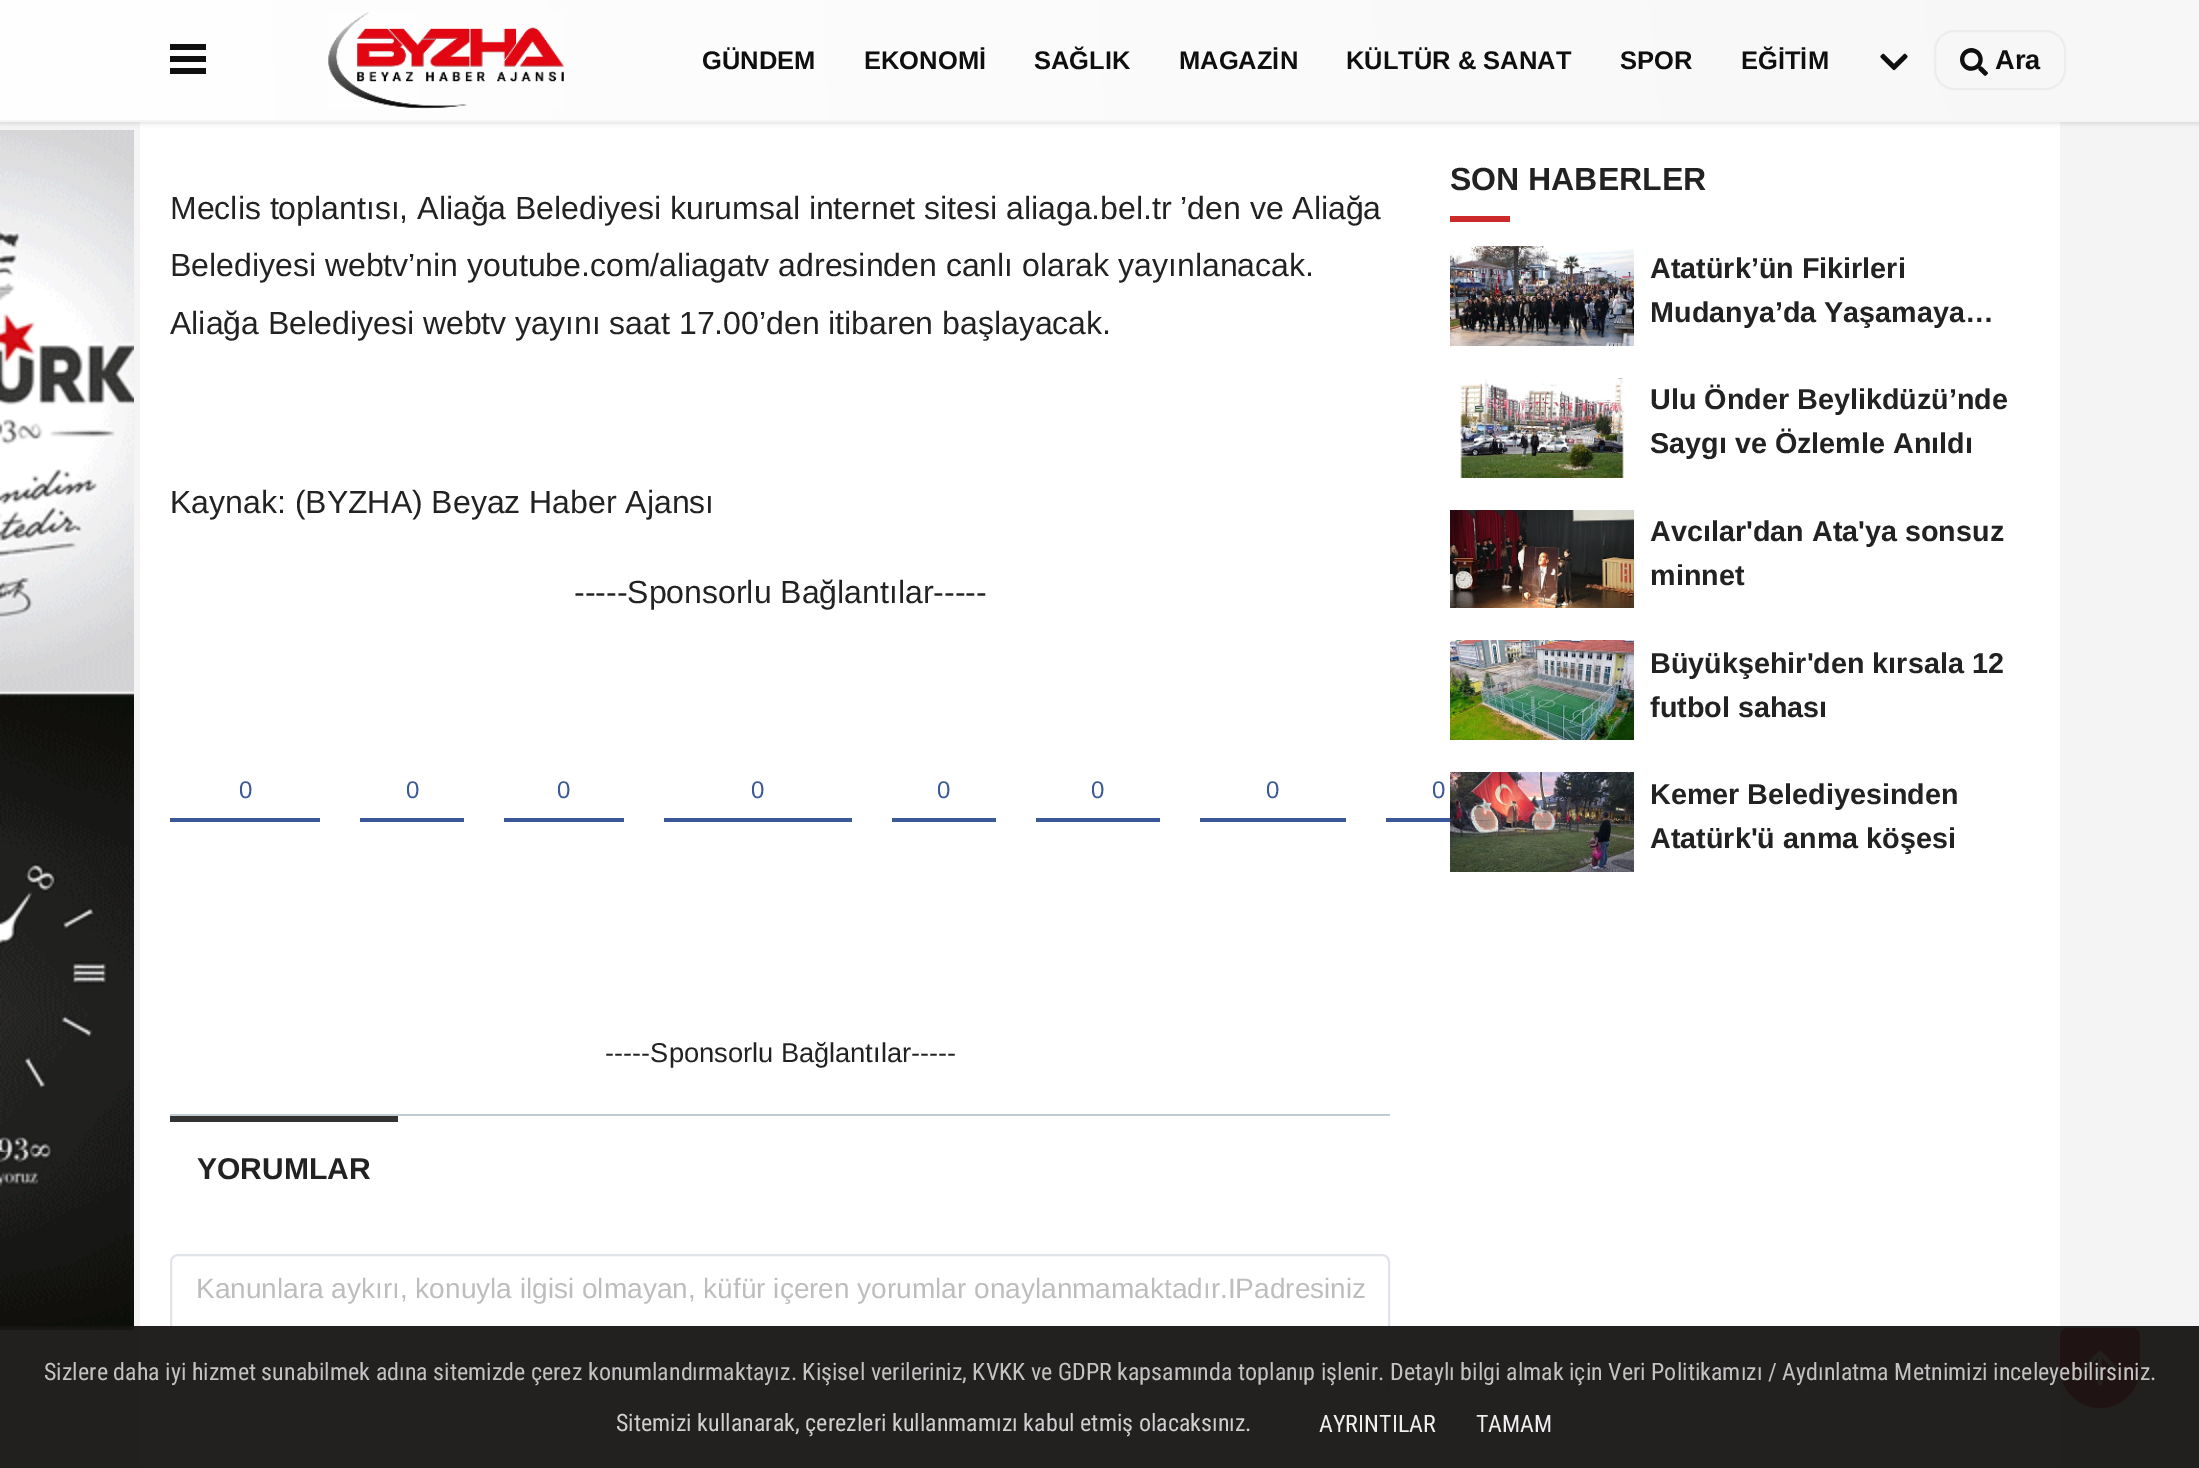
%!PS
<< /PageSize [2199 1468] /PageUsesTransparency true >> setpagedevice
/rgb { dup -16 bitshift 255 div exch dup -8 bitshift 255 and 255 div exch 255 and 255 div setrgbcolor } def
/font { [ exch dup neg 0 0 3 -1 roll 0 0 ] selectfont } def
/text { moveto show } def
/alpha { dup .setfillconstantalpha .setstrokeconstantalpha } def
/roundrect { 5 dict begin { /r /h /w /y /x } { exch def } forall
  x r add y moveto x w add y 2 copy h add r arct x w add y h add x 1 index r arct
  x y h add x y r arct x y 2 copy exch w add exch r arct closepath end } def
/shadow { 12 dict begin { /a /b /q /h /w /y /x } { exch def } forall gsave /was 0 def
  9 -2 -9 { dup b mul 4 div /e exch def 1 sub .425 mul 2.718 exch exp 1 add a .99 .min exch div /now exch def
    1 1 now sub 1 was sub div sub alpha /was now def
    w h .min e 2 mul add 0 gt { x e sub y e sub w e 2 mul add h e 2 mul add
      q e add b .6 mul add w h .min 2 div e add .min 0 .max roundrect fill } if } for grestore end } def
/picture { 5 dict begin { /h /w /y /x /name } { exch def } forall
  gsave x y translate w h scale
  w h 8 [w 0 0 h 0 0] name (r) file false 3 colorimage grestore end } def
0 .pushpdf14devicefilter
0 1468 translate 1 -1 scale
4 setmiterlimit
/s1 { /LiberationSans-Bold 25.5 font 16#0F0F0F rgb } def
/s2 { /LiberationSans-Bold 27.25 font 16#0F0F0F rgb } def
/s3 { /LiberationSans-Regular 32 font 16#222222 rgb } def
/s4 { /LiberationSans-Regular 24 font 16#3B5998 rgb } def
/s5 { /LiberationSans-Regular 27.25 font 16#222222 rgb } def
/s6 { /LiberationSans-Bold 30 font 16#222222 rgb } def
/s7 { /LiberationSans-Regular 28 font 16#BDBDBD rgb } def
/s8 { /LiberationSans-Bold 32 font 16#222222 rgb } def
/s9 { /LiberationSans-Bold 28.75 font 16#222222 rgb } def
/s10 { /RobotoCondensed-Regular 24 font 16#C4C3C3 rgb } def
/s11 { /RobotoCondensed-Regular 24 font 16#CFCFCF rgb } def
/s12 { /RobotoCondensed-Regular 24 font 16#EFEFEF rgb } def
16#F4F4F4 rgb
0 0 2199 1468 rectfill
(pic4.raw) 0 130 134 1200 picture
16#FFFFFF rgb
140 122 1920 1346 rectfill
16#000000 rgb
0 2 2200 122 0 2 0.1 shadow
gsave 0 0 moveto 2199 0 lineto 2199 120 lineto 0 120 lineto closepath clip newpath 2200 0 translate 2203 2203 scale
<< /ShadingType 3 /ColorSpace /DeviceRGB /Coords [0 0 0 0 0 1] /Extend [true true] /Function << /FunctionType 2 /Domain [0 1] /C0 [0.969 0.969 0.969] /C1 [1 1 1] /N 1 >> >> shfill grestore
16#F5F5F5 rgb
0 120 2199 2 rectfill
16#0F0F0F rgb
170 44 36 6 rectfill
170 56 36 6 rectfill
170 68 36 6 rectfill
(pic1.raw) 328 12 236 97 picture
s1
(GÜNDEM) 702 69 text
(EKONOMİ) 864 69 text
(SAĞLIK) 1034 69 text
(MAGAZİN) 1179 69 text
(KÜLTÜR & SANAT) 1346 69 text
(SPOR) 1620 69 text
(EĞİTİM) 1741 69 text
(pic2.raw) 1880 53 28 18 picture
16#EDEDED rgb
2 setlinewidth
1935 31 130 58 19 roundrect stroke
(pic3.raw) 1960 48 28 28 picture
s2
(Ara) 1995 69 text
s3
(Meclis toplantısı, Aliağa Belediyesi kurumsal internet sitesi aliaga.bel.tr ’den ve Aliağa) 170 219 text
(Belediyesi webtv’nin youtube.com/aliagatv adresinden canlı olarak yayınlanacak.) 170 276 text
(Aliağa Belediyesi webtv yayını saat 17.00’den itibaren başlayacak.) 170 334 text
(Kaynak: \(BYZHA\) Beyaz Haber Ajansı) 170 513 text
(-----Sponsorlu Bağlantılar-----) 574 603 text
16#3B5998 rgb
170 818 150 4 rectfill
s4
(0) 239 798 text
360 818 104 4 rectfill
(0) 406 798 text
504 818 120 4 rectfill
(0) 557 798 text
664 818 188 4 rectfill
(0) 751 798 text
892 818 104 4 rectfill
(0) 937 798 text
1036 818 124 4 rectfill
(0) 1091 798 text
1200 818 146 4 rectfill
(0) 1266 798 text
1386 818 64 4 rectfill
(0) 1432 798 text
s5
(-----Sponsorlu Bağlantılar-----) 605 1062 text
16#C3CBD2 rgb
170 1114 1220 2 rectfill
16#333333 rgb
170 1116 228 6 rectfill
s6
(YORUMLAR) 197 1179 text
16#E1E5E9 rgb
171 1255 1218 142 7 roundrect stroke
s7
(Kanunlara aykırı, konuyla ilgisi olmayan, küfür içeren yorumlar onaylanmamaktadır.IPadresiniz) 196 1298 text
s8
(SON HABERLER) 1450 190 text
16#CC292B rgb
1450 216 60 6 rectfill
(pic5.raw) 1450 246 184 100 picture
s9
(Atatürk’ün Fikirleri) 1650 278 text
(Mudanya’da Yaşamaya…) 1650 322 text
(pic6.raw) 1460 378 165 100 picture
(Ulu Önder Beylikdüzü’nde) 1650 409 text
(Saygı ve Özlemle Anıldı) 1650 453 text
(pic7.raw) 1450 510 184 98 picture
(Avcılar'dan Ata'ya sonsuz) 1650 541 text
(minnet) 1650 585 text
(pic8.raw) 1450 640 184 100 picture
(Büyükşehir'den kırsala 12) 1650 673 text
(futbol sahası) 1650 717 text
(pic9.raw) 1450 772 184 100 picture
(Kemer Belediyesinden) 1650 804 text
(Atatürk'ü anma köşesi) 1650 848 text
16#CC0700 rgb
2068 1328 moveto 2132 1328 lineto 2136.5 1328 2140 1331.5 2140 1336 curveto 2140 1368 lineto 2140 1390 2122 1408 2100 1408 curveto 2078 1408 2060 1390 2060 1368 curveto 2060 1336 lineto 2060 1331.5 2063.5 1328 2068 1328 curveto closepath fill
(pic10.raw) 2082 1350 36 36 picture
0.95 alpha
16#171414 rgb
0 1326 2199 142 rectfill
1 alpha
s10
(Sizlere daha iyi hizmet sunabilmek adına sitemizde çerez konumlandırmaktayız. Kişisel verileriniz, KVKK ve GDPR kapsamında toplanıp işlenir. Detaylı bilgi almak için Veri Politikamızı / Aydınlatma Metnimizi inceleyebilirsiniz.) 44 1380 text
s11
(Sitemizi kullanarak, çerezleri kullanmamızı kabul etmiş olacaksınız.) 616 1431 text
s12
(AYRINTILAR) 1319 1432 text
(TAMAM) 1476 1432 text
.poppdf14devicefilter showpage
